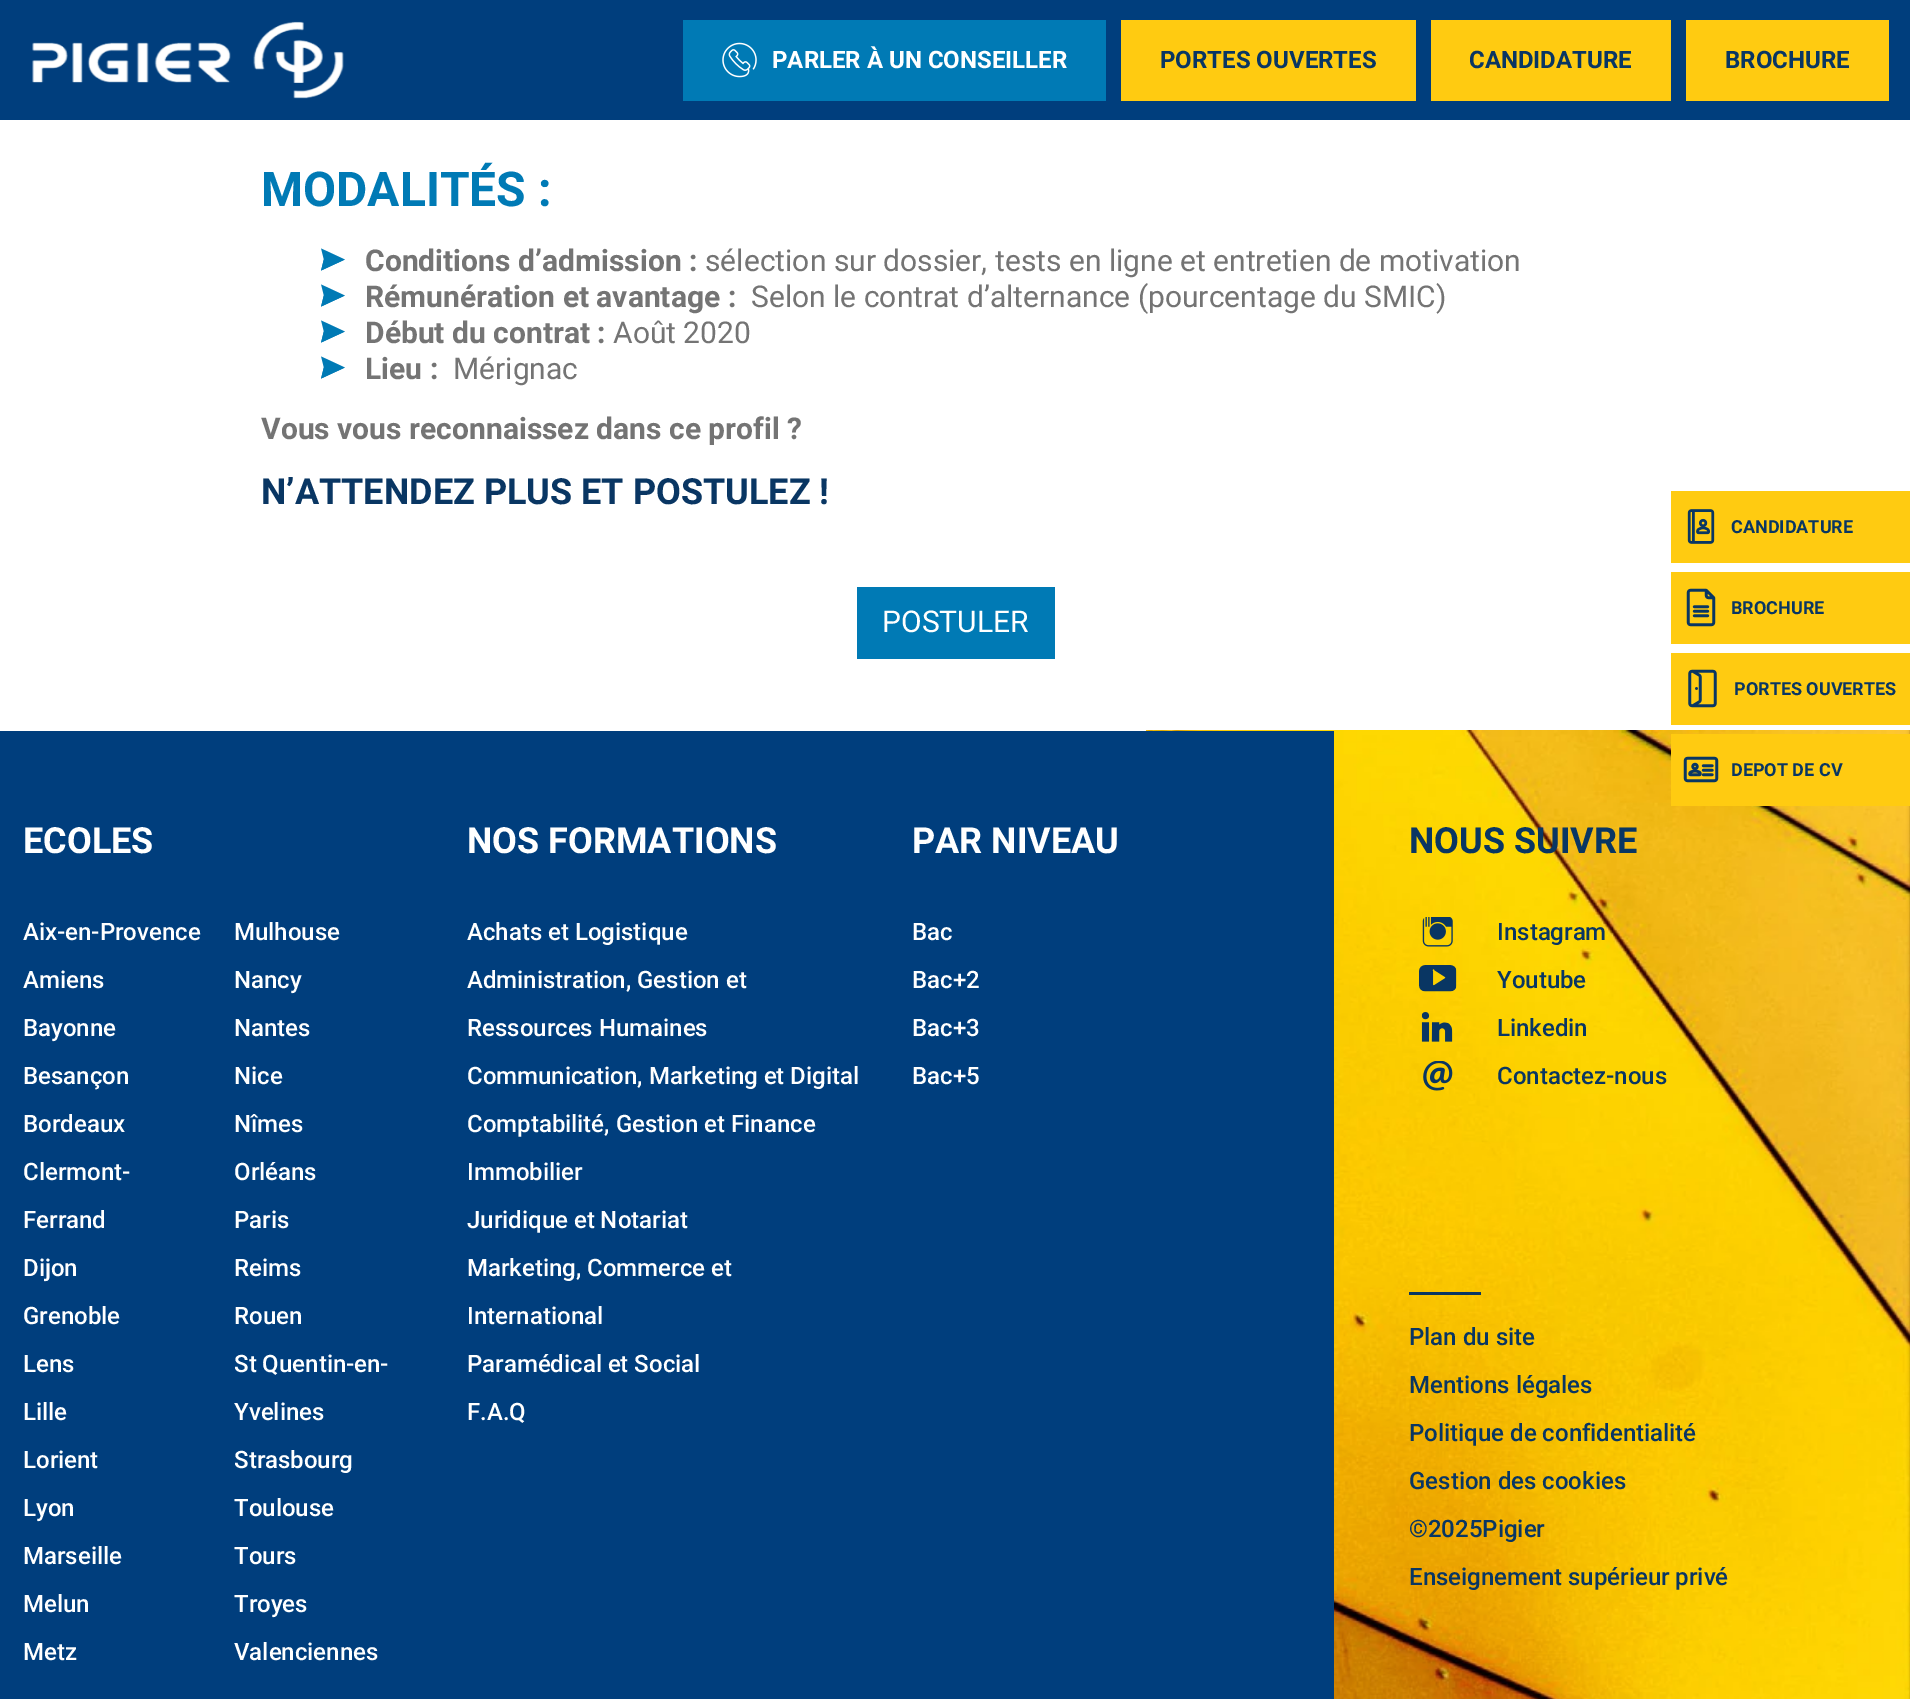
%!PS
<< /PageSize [1910 1699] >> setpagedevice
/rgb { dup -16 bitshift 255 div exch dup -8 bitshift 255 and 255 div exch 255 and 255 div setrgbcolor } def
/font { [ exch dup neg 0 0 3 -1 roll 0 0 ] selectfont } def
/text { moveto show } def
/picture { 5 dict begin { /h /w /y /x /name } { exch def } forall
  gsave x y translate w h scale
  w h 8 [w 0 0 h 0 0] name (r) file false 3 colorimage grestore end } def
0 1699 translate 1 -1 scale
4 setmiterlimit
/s1 { /Roboto-Bold 24 font 16#FFFFFF rgb } def
/s2 { /Roboto-Bold 24 font 16#093663 rgb } def
/s3 { /Roboto-Bold 48 font 16#007AB5 rgb } def
/s4 { /Roboto-Bold 30 font 16#747474 rgb } def
/s5 { /Roboto-Regular 30 font 16#747474 rgb } def
/s6 { /Roboto-Bold 36 font 16#093663 rgb } def
/s7 { /Roboto-Regular 30 font 16#FFFFFF rgb } def
/s8 { /Roboto-Bold 18 font 16#093663 rgb } def
/s9 { /Roboto-Bold 36 font 16#FFFFFF rgb } def
/s10 { /Roboto-Medium 24 font 16#FFFFFF rgb } def
/s11 { /Roboto-Medium 24 font 16#093663 rgb } def
16#FFFFFF rgb
0 0 1910 1699 rectfill
16#003E7D rgb
0 0 1910 120 rectfill
(pic1.raw) 32 21 312 78 picture
16#007AB5 rgb
683 20 423 81 rectfill
(pic2.raw) 722 42 35 36 picture
s1
(PARLER À UN CONSEILLER) 772 68 text
16#FFCB11 rgb
1121 20 295 81 rectfill
s2
(PORTES OUVERTES) 1160 68 text
16#FFCB11 rgb
1431 20 240 81 rectfill
s2
(CANDIDATURE) 1469 68 text
16#FFCB11 rgb
1686 20 203 81 rectfill
s2
(BROCHURE) 1725 68 text
s3
(MODALITÉS :) 261 206 text
(pic3.raw) 321 248 24 23 picture
s4
(Conditions d’admission :) 365 271 text
s5
(sélection sur dossier, tests en ligne et entretien de motivation) 705 271 text
(pic3.raw) 321 284 24 23 picture
s4
(Rémunération et avantage :) 365 307 text
s5
(Selon le contrat d’alternance \(pourcentage du SMIC\)) 751 307 text
(pic3.raw) 321 320 24 23 picture
s4
(Début du contrat :) 365 343 text
s5
(Août 2020) 613 343 text
(pic3.raw) 321 356 24 23 picture
s4
(Lieu :) 365 379 text
s5
(Mérignac) 453 379 text
s4
(Vous vous reconnaissez dans ce profil ?) 261 439 text
s6
(N’ATTENDEZ PLUS ET POSTULEZ !) 261 504 text
16#007AB5 rgb
857 587 198 72 rectfill
s7
(POSTULER) 882 632 text
16#FFCB11 rgb
1671 491 239 72 rectfill
(pic4.raw) 1687 509 28 35 picture
s8
(CANDIDATURE) 1731 533 text
16#FFCB11 rgb
1671 572 239 72 rectfill
(pic5.raw) 1686 588 30 39 picture
s8
(BROCHURE) 1731 614 text
16#FFCB11 rgb
1671 653 239 72 rectfill
(pic6.raw) 1688 669 29 39 picture
s8
(PORTES OUVERTES) 1734 695 text
(pic8.raw) 1146 730 764 969 picture
16#FFCB11 rgb
1671 734 239 72 rectfill
(pic7.raw) 1683 756 36 27 picture
s8
(DEPOT DE CV) 1731 776 text
16#003E7D rgb
0 731 890 968 rectfill
s9
(ECOLES) 23 853 text
s10
(Aix-en-Provence) 23 940 text
(Mulhouse) 234 940 text
(Amiens) 23 988 text
(Nancy) 234 988 text
(Bayonne) 23 1036 text
(Nantes) 234 1036 text
(Besançon) 23 1084 text
(Nice) 234 1084 text
(Bordeaux) 23 1132 text
(Nîmes) 234 1132 text
(Clermont-) 23 1180 text
(Ferrand) 23 1228 text
(Orléans) 234 1180 text
(Paris) 234 1228 text
(Dijon) 23 1276 text
(Reims) 234 1276 text
(Grenoble) 23 1324 text
(Rouen) 234 1324 text
(Lens) 23 1372 text
(St Quentin-en-) 234 1372 text
(Yvelines) 234 1420 text
(Lille) 23 1420 text
(Lorient) 23 1468 text
(Strasbourg) 234 1468 text
(Lyon) 23 1516 text
(Toulouse) 234 1516 text
(Marseille) 23 1564 text
(Tours) 234 1564 text
(Melun) 23 1612 text
(Troyes) 234 1612 text
(Metz) 23 1660 text
(Valenciennes) 234 1660 text
s9
(NOS FORMATIONS) 467 853 text
s10
(Achats et Logistique) 467 940 text
(Administration, Gestion et) 467 988 text
(Ressources Humaines) 467 1036 text
(Communication, Marketing et Digital) 467 1084 text
(Comptabilité, Gestion et Finance) 467 1132 text
(Immobilier) 467 1180 text
(Juridique et Notariat) 467 1228 text
(Marketing, Commerce et) 467 1276 text
(International) 467 1324 text
(Paramédical et Social) 467 1372 text
(F.A.Q) 467 1420 text
16#003E7D rgb
890 731 444 968 rectfill
s9
(PAR NIVEAU) 912 853 text
s10
(Bac) 912 940 text
(Bac+2) 912 988 text
(Bac+3) 912 1036 text
(Bac+5) 912 1084 text
s6
(NOUS SUIVRE) 1409 853 text
(pic9.raw) 1422 917 31 30 picture
s11
(Instagram) 1497 940 text
(pic10.raw) 1419 965 38 27 picture
(Youtube) 1497 988 text
(pic11.raw) 1421 1012 32 30 picture
(Linkedin) 1497 1036 text
(pic12.raw) 1423 1061 30 30 picture
(Contactez-nous) 1497 1084 text
1409 1292 72 3 rectfill
(Plan du site) 1409 1345 text
(Mentions légales) 1409 1393 text
(Politique de confidentialité) 1409 1441 text
(Gestion des cookies) 1409 1489 text
(©2025Pigier) 1409 1537 text
(Enseignement supérieur privé) 1409 1585 text
showpage
